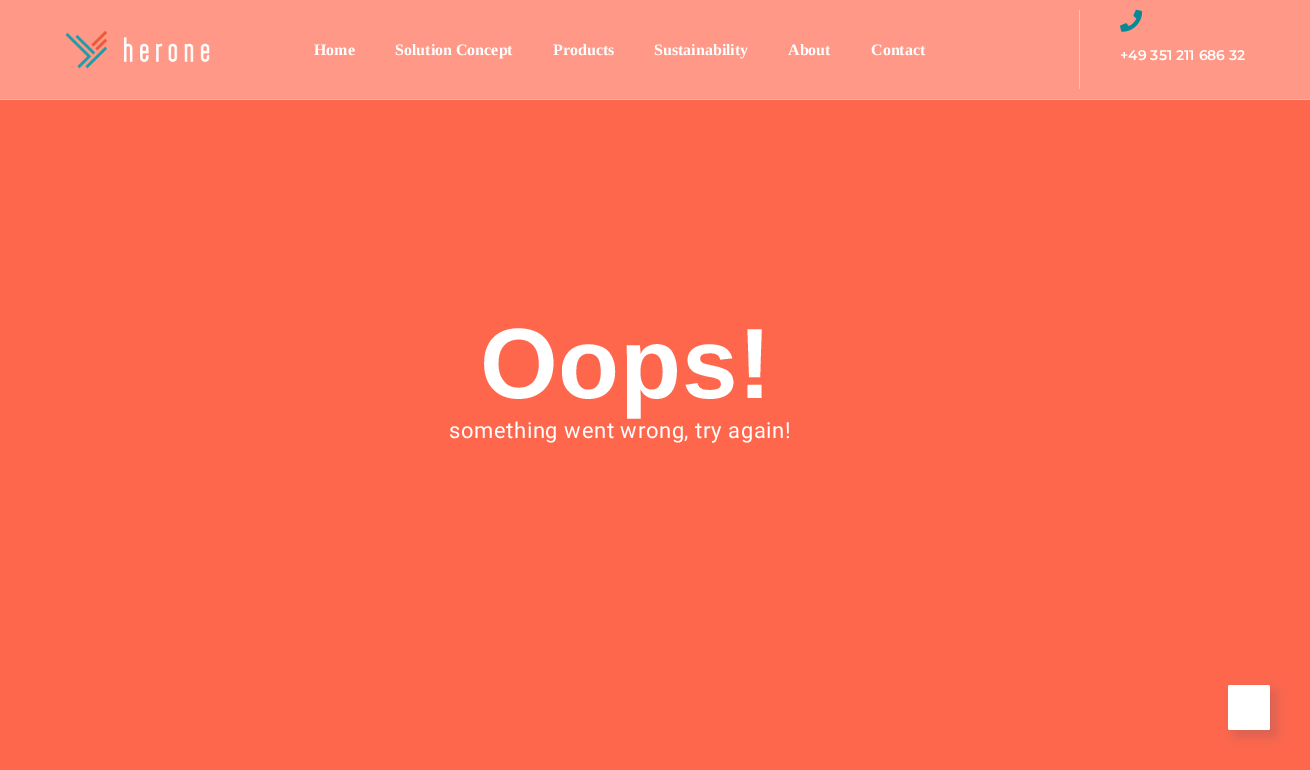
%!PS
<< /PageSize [1310 770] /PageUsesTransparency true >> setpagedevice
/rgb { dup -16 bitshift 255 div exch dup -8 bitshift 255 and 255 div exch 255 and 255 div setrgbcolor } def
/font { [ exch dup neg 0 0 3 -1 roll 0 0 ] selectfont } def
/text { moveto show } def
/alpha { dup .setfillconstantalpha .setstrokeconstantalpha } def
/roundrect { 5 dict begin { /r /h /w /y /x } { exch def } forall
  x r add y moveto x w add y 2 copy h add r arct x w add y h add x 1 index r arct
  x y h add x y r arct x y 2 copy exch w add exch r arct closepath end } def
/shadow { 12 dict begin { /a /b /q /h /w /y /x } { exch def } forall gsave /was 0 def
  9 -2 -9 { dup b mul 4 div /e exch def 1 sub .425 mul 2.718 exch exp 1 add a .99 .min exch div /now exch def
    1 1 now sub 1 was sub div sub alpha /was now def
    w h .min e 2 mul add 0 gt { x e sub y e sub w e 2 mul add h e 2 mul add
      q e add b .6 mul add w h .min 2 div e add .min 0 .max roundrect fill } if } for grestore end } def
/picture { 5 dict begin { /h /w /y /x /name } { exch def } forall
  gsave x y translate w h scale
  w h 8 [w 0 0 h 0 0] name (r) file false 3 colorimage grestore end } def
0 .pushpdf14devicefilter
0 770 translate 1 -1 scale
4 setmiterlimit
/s1 { /LiberationSerif-Bold 16 font 16#FFFFFF rgb } def
/s2 { /Montserrat-SemiBold 14 font 16#FFFFFF rgb } def
16#FF674D rgb
0 0 1310 770 rectfill
16#FF9886 rgb
0 0 1310 99 rectfill
16#FFB4A7 rgb
0 99 1310 1 rectfill
(pic1.raw) 65 30 145 39 picture
s1
(Home) 314 55 text
(Solution Concept) 395 55 text
(Products) 553 55 text
(Sustainability) 654 55 text
(About) 788 55 text
(Contact) 871 55 text
16#FFBEB3 rgb
1079 10 1 79 rectfill
(pic2.raw) 1120 9 22 23 picture
s2
(+49 351 211 686 32) 1120 60 text
/LiberationSans-Bold 100 font
480 398 moveto 0.6 0 (Oops!) ashow
/Roboto-Regular 22 font
449 438 moveto 0.6 0 (something went wrong, try again!) ashow
16#2A4371 rgb
1234 691 42 45 2 6.5 0.2 shadow
16#FFFFFF rgb
1228 685 42 45 2 roundrect fill
.poppdf14devicefilter showpage
